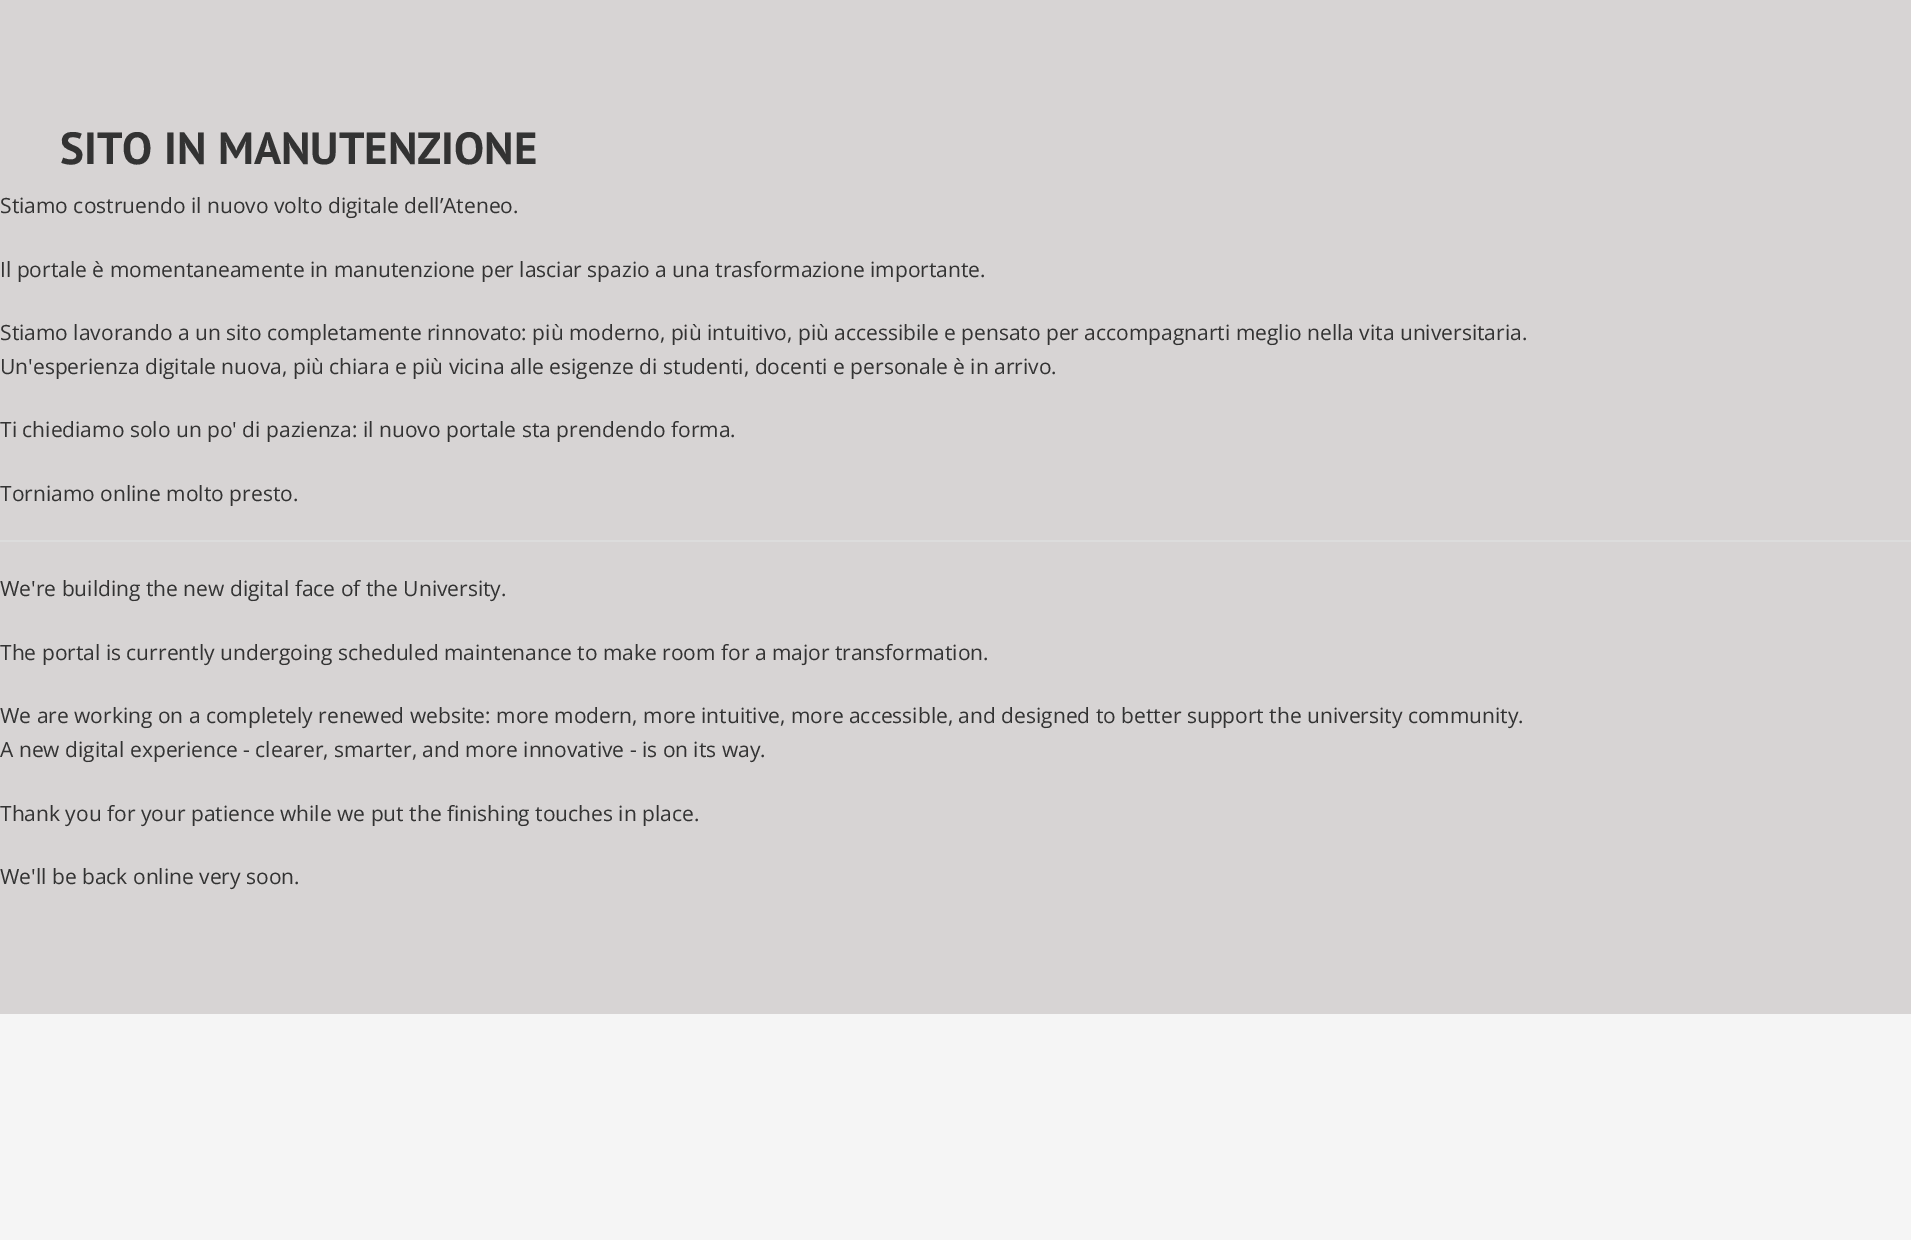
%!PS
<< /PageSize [1911 1240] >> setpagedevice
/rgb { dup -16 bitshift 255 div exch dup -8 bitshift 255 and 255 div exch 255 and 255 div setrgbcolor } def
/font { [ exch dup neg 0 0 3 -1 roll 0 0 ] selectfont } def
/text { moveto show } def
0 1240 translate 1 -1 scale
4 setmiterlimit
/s1 { /PTSans-Bold 45 font 16#333333 rgb } def
/s2 { /OpenSans-Regular 21 font 16#333333 rgb } def
16#F5F5F5 rgb
0 0 1911 1240 rectfill
16#D7D4D4 rgb
0 0 1911 1014 rectfill
s1
(SITO IN MANUTENZIONE) 60 164 text
s2
(Stiamo costruendo il nuovo volto digitale dell’Ateneo.) 0 213 text
(Il portale è momentaneamente in manutenzione per lasciar spazio a una trasformazione importante.) 0 277 text
(Stiamo lavorando a un sito completamente rinnovato: più moderno, più intuitivo, più accessibile e pensato per accompagnarti meglio nella vita universitaria.) 0 340 text
(Un'esperienza digitale nuova, più chiara e più vicina alle esigenze di studenti, docenti e personale è in arrivo.) 0 374 text
(Ti chiediamo solo un po' di pazienza: il nuovo portale sta prendendo forma.) 0 437 text
(Torniamo online molto presto.) 0 501 text
16#DCDCDC rgb
0 540 1911 2 rectfill
s2
(We're building the new digital face of the University.) 0 596 text
(The portal is currently undergoing scheduled maintenance to make room for a major transformation.) 0 660 text
(We are working on a completely renewed website: more modern, more intuitive, more accessible, and designed to better support the university community.) 0 723 text
(A new digital experience - clearer, smarter, and more innovative - is on its way.) 0 757 text
(Thank you for your patience while we put the finishing touches in place.) 0 821 text
(We'll be back online very soon.) 0 884 text
showpage
